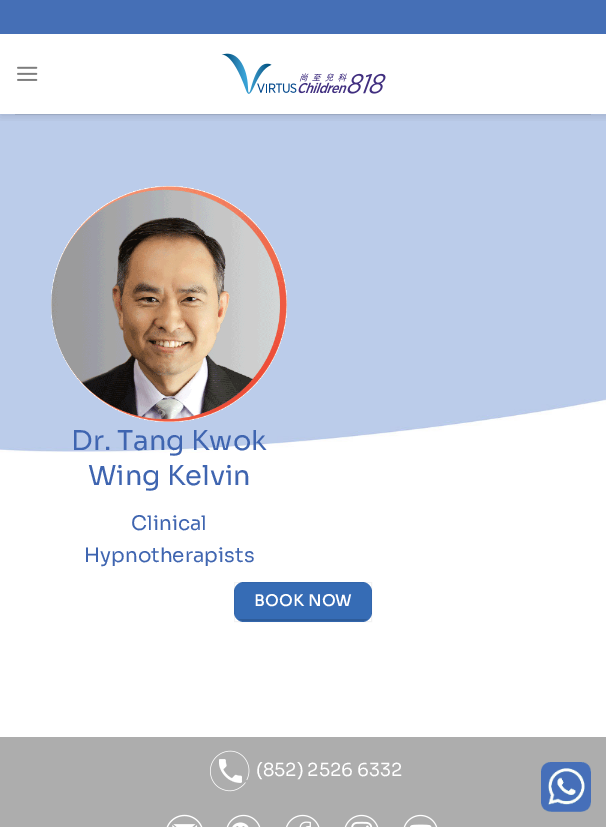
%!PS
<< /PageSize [606 827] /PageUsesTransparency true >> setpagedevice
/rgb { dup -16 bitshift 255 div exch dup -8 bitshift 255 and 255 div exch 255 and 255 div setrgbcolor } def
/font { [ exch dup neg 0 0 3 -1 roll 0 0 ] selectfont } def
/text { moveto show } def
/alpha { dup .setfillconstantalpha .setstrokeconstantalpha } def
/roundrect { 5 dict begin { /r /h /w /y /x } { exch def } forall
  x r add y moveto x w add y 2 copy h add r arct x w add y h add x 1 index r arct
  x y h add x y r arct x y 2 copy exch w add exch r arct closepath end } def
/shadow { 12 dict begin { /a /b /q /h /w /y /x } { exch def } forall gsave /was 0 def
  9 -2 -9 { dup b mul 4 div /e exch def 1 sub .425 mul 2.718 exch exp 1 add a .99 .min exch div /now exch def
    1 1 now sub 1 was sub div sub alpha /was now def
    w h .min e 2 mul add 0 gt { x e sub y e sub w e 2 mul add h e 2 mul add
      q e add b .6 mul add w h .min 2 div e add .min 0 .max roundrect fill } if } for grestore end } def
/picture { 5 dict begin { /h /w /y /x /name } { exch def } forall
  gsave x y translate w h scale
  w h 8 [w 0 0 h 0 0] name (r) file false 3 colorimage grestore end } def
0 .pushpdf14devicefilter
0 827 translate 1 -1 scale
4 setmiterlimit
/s1 { /Sora-Regular 27.25 font 16#3F65B0 rgb } def
/s2 { /Sora-Regular 20 font 16#3F65B0 rgb } def
/s3 { /Sora-Regular 18 font 16#FFFFFF rgb } def
16#FFFFFF rgb
0 0 606 827 rectfill
(pic3.raw) 0 114 606 339 picture
gsave
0 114 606 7 rectclip
16#000000 rgb
1 1 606 114 0 5 0.15 shadow
grestore
16#456FB6 rgb
0 0 606 34 rectfill
(pic1.raw) 17 66 21 15 picture
(pic2.raw) 221 53 165 41 picture
16#9BA9C2 rgb
15 114 576 1 rectfill
(pic4.raw) 51 186 236 236 picture
s1
(Dr. Tang Kwok) 71 450 text
(Wing Kelvin) 88 485 text
s2
(Clinical) 131 530 text
(Hypnotherapists) 84 562 text
16#366CB5 rgb
234 582 138 40 10 roundrect fill
0.05 alpha
16#000000 rgb
234.5 582.5 137 39 rectstroke
/Sora-Bold 15.5 font
1 alpha
16#FFFFFF rgb
254 606 moveto 0.5 0 (BOOK NOW) ashow
0.15 alpha
16#000000 rgb
238 619 moveto 240 620 242 621 244 621 curveto 362 621 lineto 364 621 366 620 368 619 curveto closepath fill
1 alpha
16#ADADAD rgb
0 737 606 90 rectfill
(pic5.raw) 210 750 40 42 picture
s3
(\(852\) 2526 6332) 256 776 text
(pic6.raw) 166 814 37 13 picture
(pic7.raw) 226 814 35 13 picture
(pic8.raw) 286 814 34 13 picture
(pic9.raw) 344 814 35 13 picture
(pic10.raw) 403 814 35 13 picture
(pic11.raw) 541 762 50 50 picture
.poppdf14devicefilter showpage
